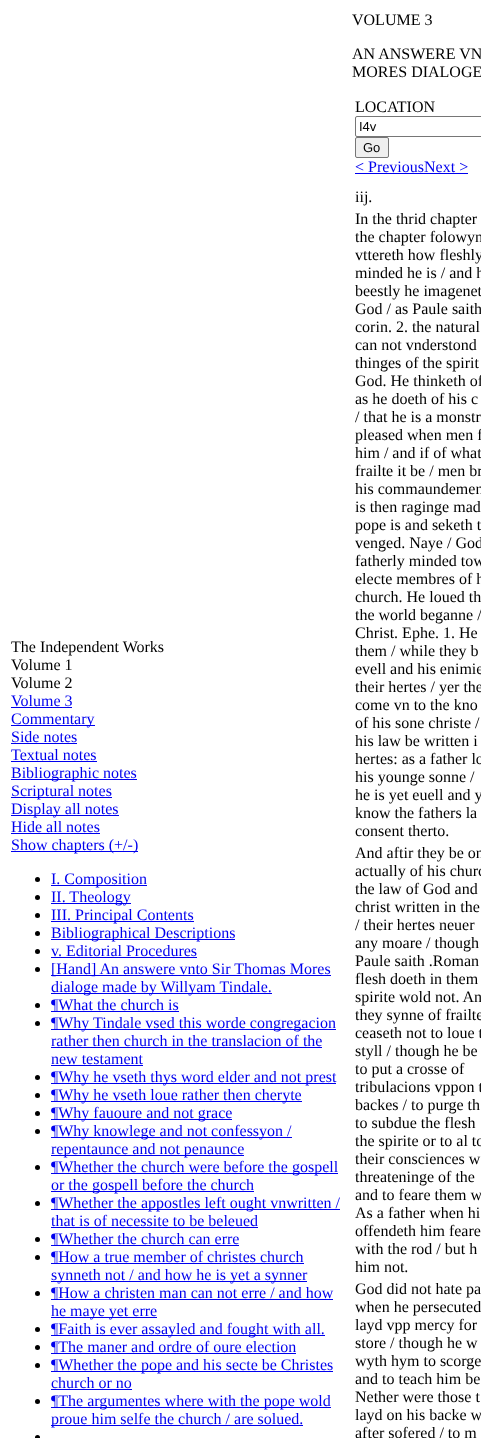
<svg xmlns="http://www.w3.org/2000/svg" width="481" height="1438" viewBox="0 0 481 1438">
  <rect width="100%" height="100%" fill="#fff"/>
  <path d="M11 707h61v1H11z" fill="#00e"/>
  <path d="M11 725h84v1H11z" fill="#00e"/>
  <path d="M11 743h66v1H11z" fill="#00e"/>
  <path d="M11 761h86v1H11z" fill="#00e"/>
  <path d="M11 779h126v1H11z" fill="#00e"/>
  <path d="M11 797h101v1H11z" fill="#00e"/>
  <path d="M11 815h108v1H11z" fill="#00e"/>
  <path d="M11 833h89v1H11z" fill="#00e"/>
  <path d="M11 851h127v1H11z" fill="#00e"/>
  <circle cx="37.5" cy="879.5" r="2.5" fill="#000"/>
  <path d="M51 885h96v1H51z" fill="#00e"/>
  <circle cx="37.5" cy="897.5" r="2.5" fill="#000"/>
  <path d="M51 903h80v1H51z" fill="#00e"/>
  <circle cx="37.5" cy="915.5" r="2.5" fill="#000"/>
  <path d="M51 921h143v1H51z" fill="#00e"/>
  <circle cx="37.5" cy="933.5" r="2.5" fill="#000"/>
  <path d="M51 939h184v1H51z" fill="#00e"/>
  <circle cx="37.5" cy="951.5" r="2.5" fill="#000"/>
  <path d="M51 957h146v1H51z" fill="#00e"/>
  <circle cx="37.5" cy="969.5" r="2.5" fill="#000"/>
  <path d="M51 975h280v1H51z" fill="#00e"/>
  <path d="M51 993h221v1H51z" fill="#00e"/>
  <circle cx="37.5" cy="1005.5" r="2.5" fill="#000"/>
  <path d="M51 1011h128v1H51z" fill="#00e"/>
  <circle cx="37.5" cy="1023.5" r="2.5" fill="#000"/>
  <path d="M51 1029h285v1H51z" fill="#00e"/>
  <path d="M51 1047h271v1H51z" fill="#00e"/>
  <path d="M51 1065h92v1H51z" fill="#00e"/>
  <circle cx="37.5" cy="1077.5" r="2.5" fill="#000"/>
  <path d="M51 1083h285v1H51z" fill="#00e"/>
  <circle cx="37.5" cy="1095.5" r="2.5" fill="#000"/>
  <path d="M51 1101h251v1H51z" fill="#00e"/>
  <circle cx="37.5" cy="1113.5" r="2.5" fill="#000"/>
  <path d="M51 1119h181v1H51z" fill="#00e"/>
  <circle cx="37.5" cy="1131.5" r="2.5" fill="#000"/>
  <path d="M51 1137h241v1H51z" fill="#00e"/>
  <path d="M51 1155h193v1H51z" fill="#00e"/>
  <circle cx="37.5" cy="1167.5" r="2.5" fill="#000"/>
  <path d="M51 1173h287v1H51z" fill="#00e"/>
  <path d="M51 1191h203v1H51z" fill="#00e"/>
  <circle cx="37.5" cy="1203.5" r="2.5" fill="#000"/>
  <path d="M51 1209h289v1H51z" fill="#00e"/>
  <path d="M51 1227h207v1H51z" fill="#00e"/>
  <circle cx="37.5" cy="1239.5" r="2.5" fill="#000"/>
  <path d="M51 1245h188v1H51z" fill="#00e"/>
  <circle cx="37.5" cy="1257.5" r="2.5" fill="#000"/>
  <path d="M51 1263h253v1H51z" fill="#00e"/>
  <path d="M51 1281h256v1H51z" fill="#00e"/>
  <circle cx="37.5" cy="1293.5" r="2.5" fill="#000"/>
  <path d="M51 1299h282v1H51z" fill="#00e"/>
  <path d="M51 1317h106v1H51z" fill="#00e"/>
  <circle cx="37.5" cy="1329.5" r="2.5" fill="#000"/>
  <path d="M51 1335h274v1H51z" fill="#00e"/>
  <circle cx="37.5" cy="1347.5" r="2.5" fill="#000"/>
  <path d="M51 1353h245v1H51z" fill="#00e"/>
  <circle cx="37.5" cy="1365.5" r="2.5" fill="#000"/>
  <path d="M51 1371h282v1H51z" fill="#00e"/>
  <path d="M51 1389h81v1H51z" fill="#00e"/>
  <circle cx="37.5" cy="1401.5" r="2.5" fill="#000"/>
  <path d="M51 1407h280v1H51z" fill="#00e"/>
  <path d="M51 1425h252v1H51z" fill="#00e"/>
  <circle cx="37.5" cy="1437.5" r="2.5" fill="#000"/>
  <rect x="355.5" y="116.5" width="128" height="20" rx="1.5" fill="none" stroke="#767676"/>
  <rect x="355.5" y="137.5" width="33" height="20" rx="1.5" fill="#efefef" stroke="#767676"/>
  <path d="M355 173h113v1H355z" fill="#00e"/>
  <g font-family="Liberation Serif" font-size="16" fill="#000">
    <text x="352" y="25">VOLUME 3</text>
    <text x="352" y="59">AN ANSWERE VN</text>
    <text x="352" y="77">MORES DIALOGE</text>
    <text x="11" y="652">The Independent Works</text>
    <text x="11" y="670">Volume 1</text>
    <text x="11" y="688">Volume 2</text>
  </g>
  <g font-family="Liberation Serif" font-size="16" fill="#00e">
    <text x="11" y="706">Volume 3</text>
    <text x="11" y="724">Commentary</text>
    <text x="11" y="742">Side notes</text>
    <text x="11" y="760">Textual notes</text>
    <text x="11" y="778">Bibliographic notes</text>
    <text x="11" y="796">Scriptural notes</text>
    <text x="11" y="814">Display all notes</text>
    <text x="11" y="832">Hide all notes</text>
    <text x="11" y="850">Show chapters (+/-)</text>
    <text x="51" y="884">I. Composition</text>
    <text x="51" y="902">II. Theology</text>
    <text x="51" y="920">III. Principal Contents</text>
    <text x="51" y="938">Bibliographical Descriptions</text>
    <text x="51" y="956">v. Editorial Procedures</text>
    <text x="51" y="974">[Hand] An answere vnto Sir Thomas Mores</text>
    <text x="51" y="992">dialoge made by Willyam Tindale.</text>
    <text x="51" y="1010">¶What the church is</text>
    <text x="51" y="1028">¶Why Tindale vsed this worde congregacion</text>
    <text x="51" y="1046">rather then church in the translacion of the</text>
    <text x="51" y="1064">new testament</text>
    <text x="51" y="1082">¶Why he vseth thys word elder and not prest</text>
    <text x="51" y="1100">¶Why he vseth loue rather then cheryte</text>
    <text x="51" y="1118">¶Why fauoure and not grace</text>
    <text x="51" y="1136">¶Why knowlege and not confessyon /</text>
    <text x="51" y="1154">repentaunce and not penaunce</text>
    <text x="51" y="1172">¶Whether the church were before the gospell</text>
    <text x="51" y="1190">or the gospell before the church</text>
    <text x="51" y="1208">¶Whether the appostles left ought vnwritten /</text>
    <text x="51" y="1226">that is of necessite to be beleued</text>
    <text x="51" y="1244">¶Whether the church can erre</text>
    <text x="51" y="1262">¶How a true member of christes church</text>
    <text x="51" y="1280">synneth not / and how he is yet a synner</text>
    <text x="51" y="1298">¶How a christen man can not erre / and how</text>
    <text x="51" y="1316">he maye yet erre</text>
    <text x="51" y="1334">¶Faith is ever assayled and fought with all.</text>
    <text x="51" y="1352">¶The maner and ordre of oure election</text>
    <text x="51" y="1370">¶Whether the pope and his secte be Christes</text>
    <text x="51" y="1388">church or no</text>
    <text x="51" y="1406">¶The argumentes where with the pope wold</text>
    <text x="51" y="1424">proue him selfe the church / are solued.</text>
  </g>
  <text x="355" y="112" font-family="Liberation Serif" font-size="16" fill="#000">LOCATION</text>
  <g font-family="Liberation Sans" font-size="13" fill="#000">
    <text x="359" y="131">I4v</text>
    <text x="363" y="152">Go</text>
  </g>
  <text x="355" y="172" font-family="Liberation Serif" font-size="16" fill="#00e">&lt; PreviousNext &gt;</text>
  <g font-family="Liberation Serif" font-size="16" fill="#000">
    <text x="355" y="202">iij.</text>
    <text x="355" y="224">In the thrid chapter</text>
    <text x="355" y="242">the chapter folowyn</text>
    <text x="355" y="260">vttereth how fleshly</text>
    <text x="355" y="278">minded he is / and h</text>
    <text x="355" y="296">beestly he imagenet</text>
    <text x="355" y="314">God / as Paule saith</text>
    <text x="355" y="332">corin. 2. the natural</text>
    <text x="355" y="350">can not vnderstond</text>
    <text x="355" y="368">thinges of the spirit</text>
    <text x="355" y="386">God. He thinketh of</text>
    <text x="355" y="404">as he doeth of his c</text>
    <text x="355" y="422">/ that he is a monstr</text>
    <text x="355" y="440">pleased when men f</text>
    <text x="355" y="458">him / and if of what</text>
    <text x="355" y="476">frailte it be / men br</text>
    <text x="355" y="494">his commaundemen</text>
    <text x="355" y="512">is then raginge mad</text>
    <text x="355" y="530">pope is and seketh t</text>
    <text x="355" y="548">venged. Naye / God</text>
    <text x="355" y="566">fatherly minded tow</text>
    <text x="355" y="584">electe membres of h</text>
    <text x="355" y="602">church. He loued th</text>
    <text x="355" y="620">the world beganne /</text>
    <text x="355" y="638">Christ. Ephe. 1. He</text>
    <text x="355" y="656">them / while they b</text>
    <text x="355" y="674">evell and his enimie</text>
    <text x="355" y="692">their hertes / yer the</text>
    <text x="355" y="710">come vn to the kno</text>
    <text x="355" y="728">of his sone christe /</text>
    <text x="355" y="746">his law be written i</text>
    <text x="355" y="764">hertes: as a father lo</text>
    <text x="355" y="782">his younge sonne /</text>
    <text x="355" y="800">he is yet euell and y</text>
    <text x="355" y="818">know the fathers la</text>
    <text x="355" y="836">consent therto.</text>
    <text x="355" y="858">And aftir they be on</text>
    <text x="355" y="876">actually of his churc</text>
    <text x="355" y="894">the law of God and</text>
    <text x="355" y="912">christ written in the</text>
    <text x="355" y="930">/ their hertes neuer</text>
    <text x="355" y="948">any moare / though</text>
    <text x="355" y="966">Paule saith .Roman</text>
    <text x="355" y="984">flesh doeth in them</text>
    <text x="355" y="1002">spirite wold not. An</text>
    <text x="355" y="1020">they synne of frailte</text>
    <text x="355" y="1038">ceaseth not to loue t</text>
    <text x="355" y="1056">styll / though he be</text>
    <text x="355" y="1074">to put a crosse of</text>
    <text x="355" y="1092">tribulacions vppon t</text>
    <text x="355" y="1110">backes / to purge th</text>
    <text x="355" y="1128">to subdue the flesh</text>
    <text x="355" y="1146">the spirite or to al to</text>
    <text x="355" y="1164">their consciences w</text>
    <text x="355" y="1182">threateninge of the</text>
    <text x="355" y="1200">and to feare them w</text>
    <text x="355" y="1218">As a father when hi</text>
    <text x="355" y="1236">offendeth him feare</text>
    <text x="355" y="1254">with the rod / but h</text>
    <text x="355" y="1272">him not.</text>
    <text x="355" y="1294">God did not hate pa</text>
    <text x="355" y="1312">when he persecuted</text>
    <text x="355" y="1330">layd vpp mercy for</text>
    <text x="355" y="1348">store / though he w</text>
    <text x="355" y="1366">wyth hym to scorge</text>
    <text x="355" y="1384">and to teach him be</text>
    <text x="355" y="1402">Nether were those t</text>
    <text x="355" y="1420">layd on his backe w</text>
    <text x="355" y="1438">after sofered / to m</text>
  </g>
</svg>
